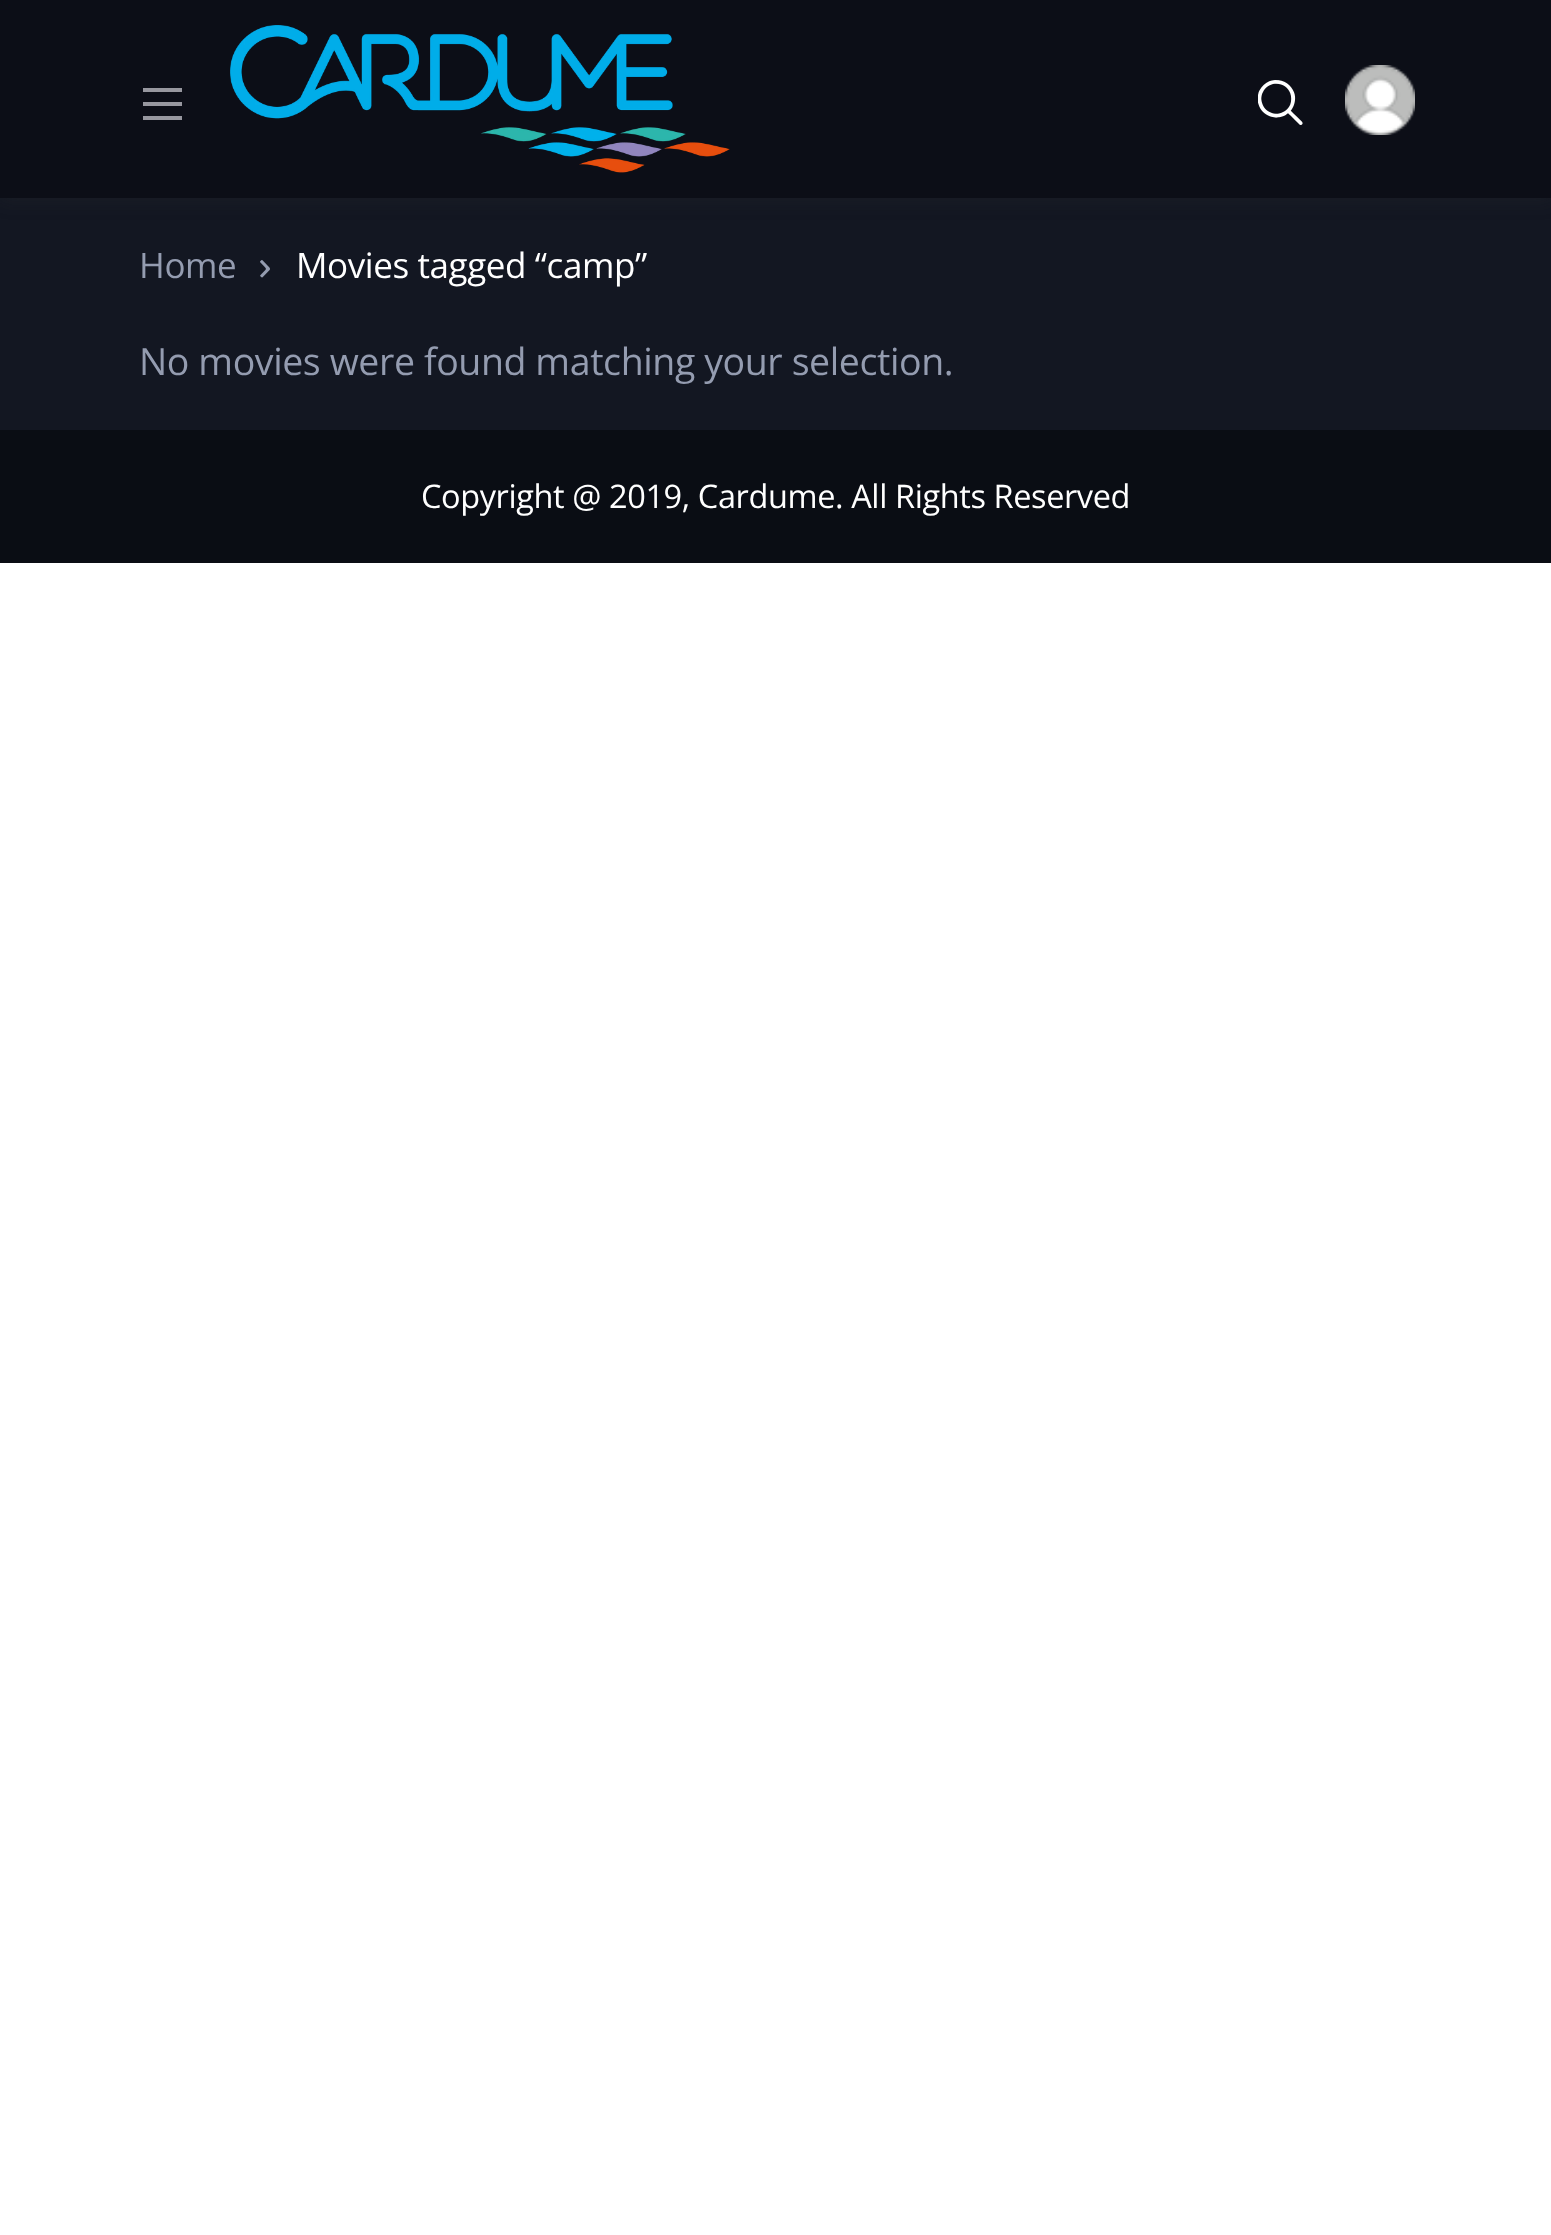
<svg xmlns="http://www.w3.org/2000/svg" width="1551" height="2235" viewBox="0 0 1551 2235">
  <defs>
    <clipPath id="clip1"><path d="M143 88h40v32H143z"/></clipPath>
  </defs>
  <rect width="100%" height="100%" fill="#fff"/>
  <path d="M0 198h1551v232H0z" fill="#131722"/>
  <path d="M0 0h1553v198H0z" fill="#3333334d" filter="blur(10px)"/>
  <path d="M0 0h1551v198H0z" fill="#0c0e17"/>
  <g clip-path="url(#clip1)">
    <path d="M142 120V116H182V120ZM142 102H182V106H142ZM142 88H182V92H142Z" fill="#97979f"/>
  </g>
  <image x="230" y="25" width="500" height="148" href="img/1.png"/>
  <image x="1258" y="80" width="45" height="45" href="img/2.png"/>
  <image x="1345" y="65" width="70" height="70" href="img/3.png"/>
  <image x="260" y="260" width="10" height="18" href="img/4.png"/>
  <path d="M0 430h1551v133H0z" fill="#0a0d14"/>
  <text x="139" y="278" font-family="Open Sans" font-size="35" letter-spacing="-0.4" fill="#949cb0">Home</text>
  <text x="296" y="278" font-family="Open Sans" font-size="35" letter-spacing="-0.4" fill="#fff">Movies tagged “camp”</text>
  <text x="139" y="375" font-family="Open Sans" font-size="37.5" letter-spacing="-0.4" fill="#949cb0">No movies were found matching your selection.</text>
  <text x="421" y="508" font-family="Open Sans" font-size="32.5" letter-spacing="-0.4" fill="#fff">Copyright @ 2019, Cardume. All Rights Reserved</text>
</svg>
